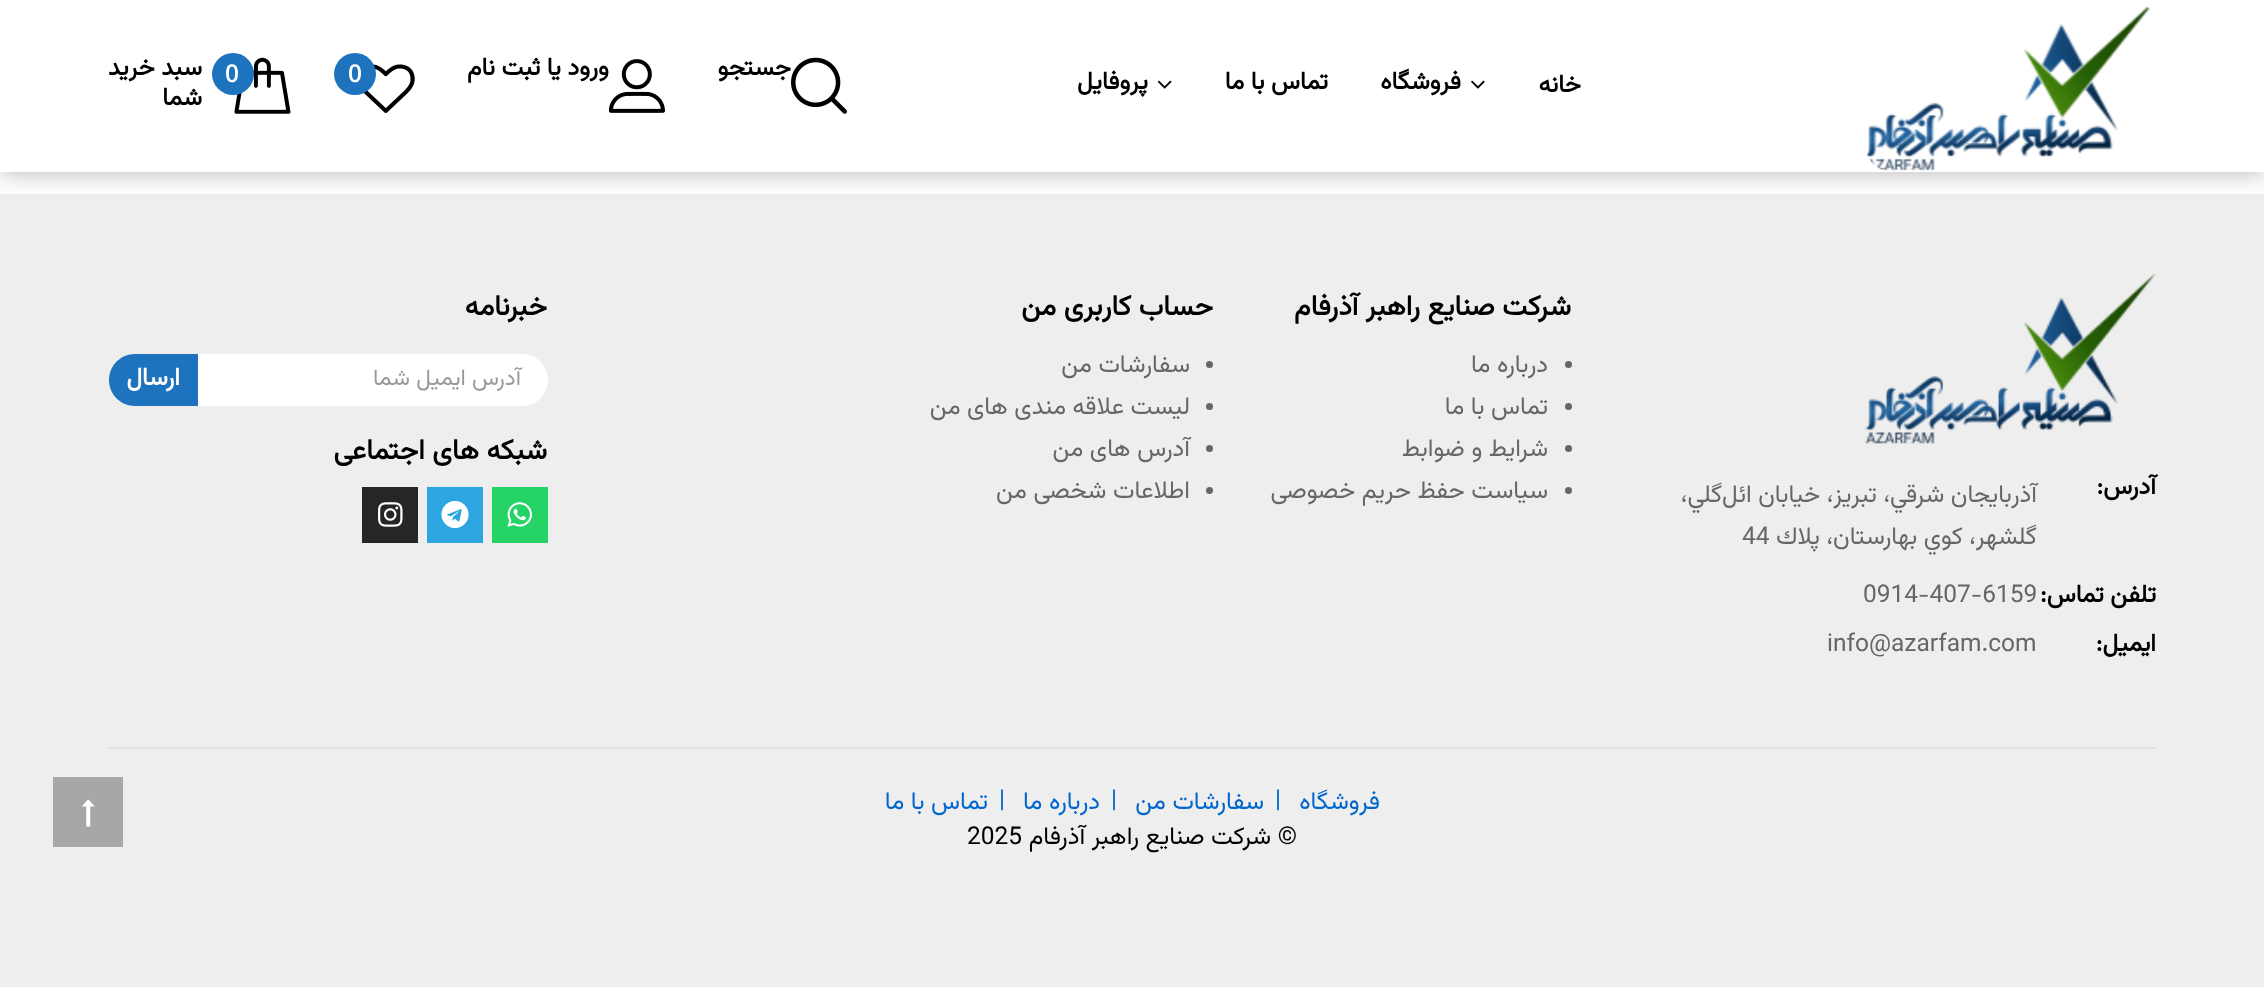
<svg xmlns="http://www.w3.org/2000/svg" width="2264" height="987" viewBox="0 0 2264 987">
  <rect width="100%" height="100%" fill="#fff"/>
  <path d="M0 194h2264v793H0z" fill="#eee"/>
  <path d="M0 0h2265v172H0z" fill="#0000004d" filter="blur(13px)"/>
  <path d="M0 0h2264v172H0z" fill="#fff"/>
  <image x="1866" y="6" width="284" height="165" href="img/1.png"/>
  <image x="1471" y="80" width="14" height="9" href="img/2.png"/>
  <image x="1157" y="80" width="15" height="9" href="img/3.png"/>
  <image x="791" y="57" width="56" height="57" href="img/4.png"/>
  <image x="609" y="59" width="56" height="54" href="img/5.png"/>
  <image x="364" y="64" width="51" height="49" href="img/6.png"/>
  <circle cx="355" cy="74" r="21" fill="#1e73be"/>
  <image x="234" y="57" width="57" height="57" href="img/7.png"/>
  <circle cx="233" cy="74" r="21" fill="#1e73be"/>
  <circle cx="1568.5" cy="364.5" r="3.5" fill="#666"/>
  <circle cx="1568.5" cy="406.5" r="3.5" fill="#666"/>
  <circle cx="1568.5" cy="448.5" r="3.5" fill="#666"/>
  <circle cx="1568.5" cy="490.5" r="3.5" fill="#666"/>
  <circle cx="1209.5" cy="364.5" r="3.5" fill="#666"/>
  <circle cx="1209.5" cy="406.5" r="3.5" fill="#666"/>
  <circle cx="1209.5" cy="448.5" r="3.5" fill="#666"/>
  <circle cx="1209.5" cy="490.5" r="3.5" fill="#666"/>
  <path d="M198 354H522C536.5 354 548 365.5 548 380C548 394.5 536.5 406 522 406H198Z" fill="#fff"/>
  <path d="M135 354H198V406H135C120.5 406 109 394.5 109 380C109 365.5 120.5 354 135 354Z" fill="#1e73be"/>
  <path d="M492 487h56v56H492z" fill="#25d366"/>
  <image x="507" y="502" width="25" height="25" href="img/8.png"/>
  <path d="M427 487h56v56H427z" fill="#2ca5e0"/>
  <image x="441" y="500" width="28" height="29" href="img/9.png"/>
  <path d="M362 487h56v56H362z" fill="#262626"/>
  <image x="378" y="502" width="25" height="25" href="img/10.png"/>
  <image x="1865" y="273" width="291" height="171" href="img/11.png"/>
  <path d="M109 747h2047v2H109z" fill="#e1e1e1"/>
  <path d="M53 777h70v70H53z" fill="#a7a7a7"/>
  <image x="82" y="799" width="13" height="28" href="img/12.png"/>
  <g font-family="Vazirmatn" font-size="24.5" font-weight="bold" direction="rtl" fill="#000">
    <text x="1581" y="92">خانه</text>
    <text x="1461" y="89">فروشگاه</text>
    <text x="1328" y="89">تماس با ما</text>
    <text x="1148" y="89">پروفایل</text>
    <text x="791" y="75">جستجو</text>
    <text x="609" y="75">ورود یا ثبت نام</text>
  </g>
  <g font-family="Open Sans" font-size="24.5" font-weight="600" fill="#fff">
    <text x="348" y="82">0</text>
    <text x="225" y="82">0</text>
  </g>
  <g font-family="Vazirmatn" font-size="24.5" font-weight="bold" direction="rtl" fill="#000">
    <text x="202" y="75">سبد خرید</text>
    <text x="202" y="105">شما</text>
  </g>
  <text x="1571" y="315" font-family="Vazirmatn" font-size="28" font-weight="bold" direction="rtl" fill="#000">شرکت صنایع راهبر آذرفام</text>
  <g font-family="Vazirmatn" font-size="24.5" direction="rtl" fill="#666">
    <text x="1548" y="372">درباره ما</text>
    <text x="1548" y="414">تماس با ما</text>
    <text x="1548" y="456">شرایط و ضوابط</text>
    <text x="1548" y="498">سیاست حفظ حریم خصوصی</text>
  </g>
  <text x="1213" y="315" font-family="Vazirmatn" font-size="28" font-weight="bold" direction="rtl" fill="#000">حساب کاربری من</text>
  <g font-family="Vazirmatn" font-size="24.5" direction="rtl" fill="#666">
    <text x="1190" y="372">سفارشات من</text>
    <text x="1190" y="414">لیست علاقه مندی های من</text>
    <text x="1190" y="456">آدرس های من</text>
    <text x="1190" y="498">اطلاعات شخصی من</text>
  </g>
  <text x="547" y="315" font-family="Vazirmatn" font-size="28" font-weight="bold" direction="rtl" fill="#000">خبرنامه</text>
  <text x="521" y="385" font-family="Vazirmatn" font-size="22.75" direction="rtl" fill="#999">آدرس ایمیل شما</text>
  <text x="180" y="385" font-family="Vazirmatn" font-size="24.5" font-weight="bold" direction="rtl" fill="#fff">ارسال</text>
  <text x="547" y="459" font-family="Vazirmatn" font-size="28" font-weight="bold" direction="rtl" fill="#000">شبکه های اجتماعی</text>
  <text x="2156" y="494" font-family="Vazirmatn" font-size="24.5" font-weight="bold" direction="rtl" fill="#000">آدرس:</text>
  <g font-family="Vazirmatn" font-size="24.5" direction="rtl" fill="#666">
    <text x="2037" y="502">آذربايجان شرقي، تبريز، خيابان ائل‌گلي،</text>
    <text x="2037" y="544">گلشهر، كوي بهارستان، پلاك</text>
  </g>
  <text x="1742" y="544" font-family="Vazirmatn" font-size="24.5" fill="#666">44</text>
  <text x="2156" y="602" font-family="Vazirmatn" font-size="24.5" font-weight="bold" direction="rtl" fill="#000">تلفن تماس:</text>
  <text x="1863" y="602" font-family="Vazirmatn" font-size="24.5" fill="#666">0914-407-6159</text>
  <text x="2156" y="651" font-family="Vazirmatn" font-size="24.5" font-weight="bold" direction="rtl" fill="#000">ایمیل:</text>
  <text x="1827" y="651" font-family="Vazirmatn" font-size="24.5" fill="#666">info@azarfam.com</text>
  <text x="1380" y="809" font-family="Vazirmatn" font-size="24.5" direction="rtl" fill="#06c">فروشگاه</text>
  <text x="1275" y="807" font-family="Vazirmatn" font-size="24.5" fill="#06c">|</text>
  <text x="1264" y="809" font-family="Vazirmatn" font-size="24.5" direction="rtl" fill="#06c">سفارشات من</text>
  <text x="1111" y="807" font-family="Vazirmatn" font-size="24.5" fill="#06c">|</text>
  <text x="1100" y="809" font-family="Vazirmatn" font-size="24.5" direction="rtl" fill="#06c">درباره ما</text>
  <text x="999" y="807" font-family="Vazirmatn" font-size="24.5" fill="#06c">|</text>
  <text x="988" y="809" font-family="Vazirmatn" font-size="24.5" direction="rtl" fill="#06c">تماس با ما</text>
  <text x="1297" y="844" font-family="Vazirmatn" font-size="24.5" direction="rtl" fill="#000">© شرکت صنایع راهبر آذرفام</text>
  <text x="967" y="844" font-family="Vazirmatn" font-size="24.5" fill="#000">2025</text>
</svg>
